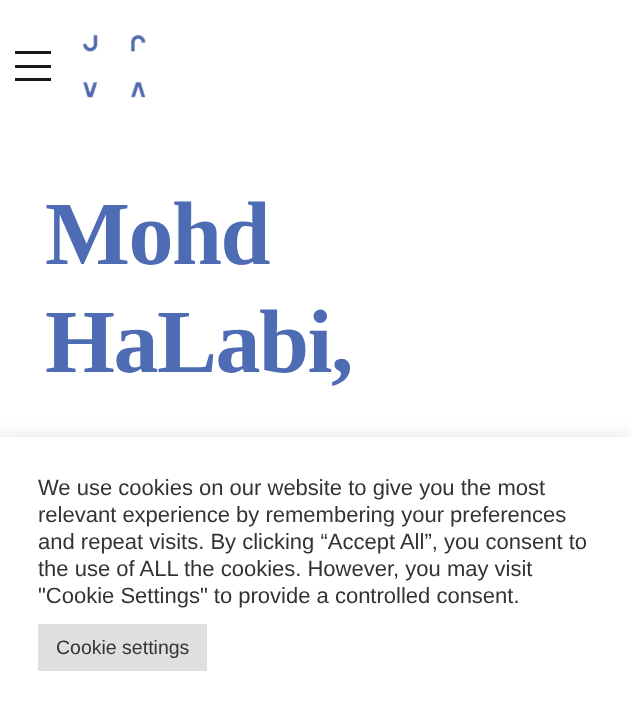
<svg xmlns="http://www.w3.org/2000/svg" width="631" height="707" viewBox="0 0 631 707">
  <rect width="100%" height="100%" fill="#fff"/>
  <path d="M15 51h36v3H15z" fill="#181818"/>
  <path d="M15 65h36v3H15z" fill="#181818"/>
  <path d="M15 78h36v3H15z" fill="#181818"/>
  <image x="82" y="34" width="64" height="64" href="img/1.png"/>
  <path d="M0 435h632v272H0z" fill="#acabab4d" filter="blur(7.5px)"/>
  <path d="M0 437h631v270H0z" fill="#fff"/>
  <path d="M38 624h169v47H38z" fill="#dedfe0"/>
  <g font-family="Liberation Serif" font-size="90" font-weight="bold" letter-spacing="-1.5" fill="#4e6cb4">
    <text x="45" y="264">Mohd</text>
    <text x="45" y="372">HaLabi,</text>
  </g>
  <g font-family="Liberation Sans" font-size="22" fill="#333">
    <text x="38" y="495">We use cookies on our website to give you the most</text>
    <text x="38" y="522">relevant experience by remembering your preferences</text>
    <text x="38" y="549">and repeat visits. By clicking “Accept All”, you consent to</text>
    <text x="38" y="576">the use of ALL the cookies. However, you may visit</text>
    <text x="38" y="603">"Cookie Settings" to provide a controlled consent.</text>
  </g>
  <text x="56" y="654" font-family="Liberation Sans" font-size="19.5" fill="#333">Cookie settings</text>
</svg>
